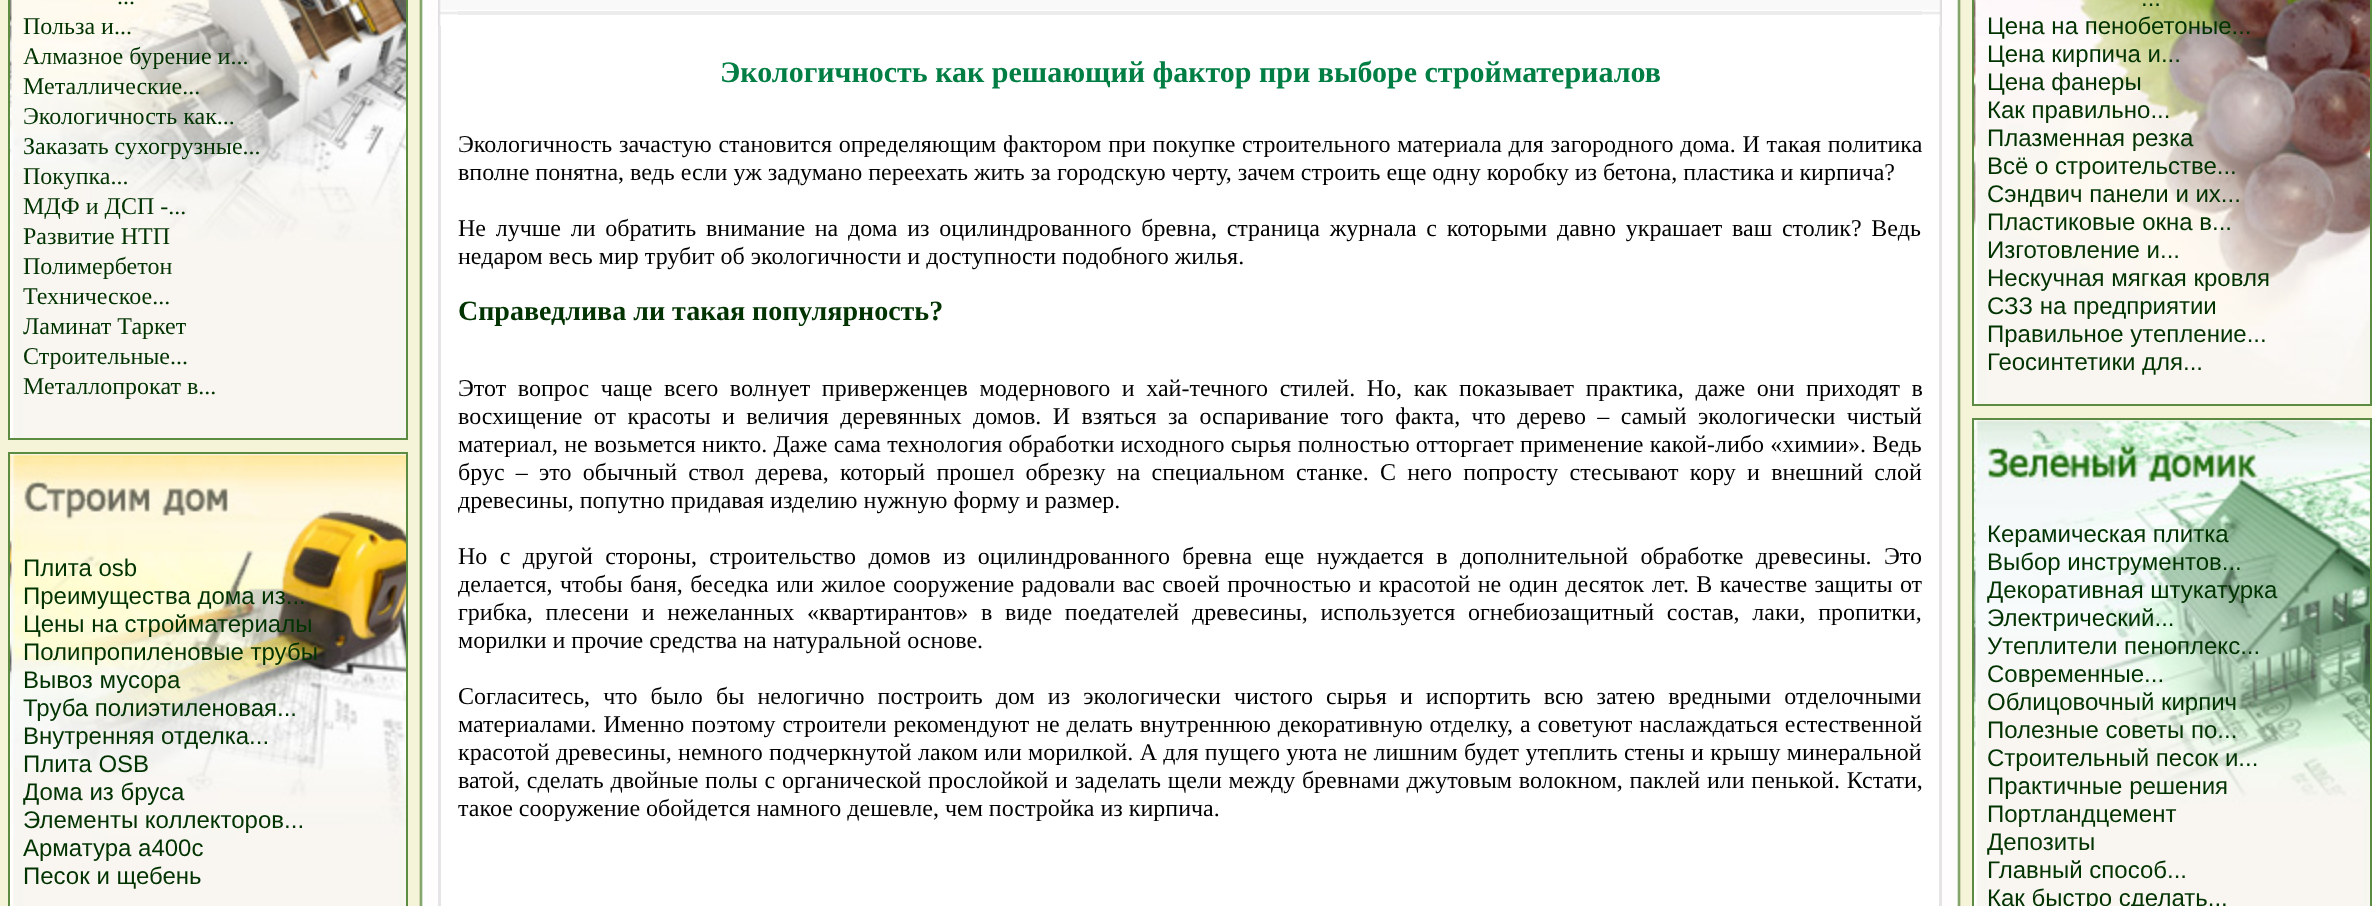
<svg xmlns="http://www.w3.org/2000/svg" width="2372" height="906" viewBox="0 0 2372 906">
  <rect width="100%" height="100%" fill="#f5f3d8"/>
  <path d="M406 0h2v440H406z" fill="#5c8c42"/>
  <path d="M8 438h400v2H8z" fill="#5c8c42"/>
  <path d="M8 0h2v440H8z" fill="#5c8c42"/>
  <image x="10" y="0" width="396" height="438" href="img/1.png"/>
  <path d="M8 452h400v2H8z" fill="#5c8c42"/>
  <path d="M406 452h2v454H406z" fill="#5c8c42"/>
  <path d="M8 452h2v454H8z" fill="#5c8c42"/>
  <image x="10" y="454" width="396" height="452" href="img/2.png"/>
  <path d="M2370 0h2v406H2370z" fill="#5c8c42"/>
  <path d="M1972 404h400v2H1972z" fill="#5c8c42"/>
  <path d="M1972 0h2v406H1972z" fill="#5c8c42"/>
  <image x="1974" y="0" width="396" height="404" href="img/3.png"/>
  <path d="M1972 418h400v2H1972z" fill="#5c8c42"/>
  <path d="M2370 418h2v488H2370z" fill="#5c8c42"/>
  <path d="M1972 418h2v488H1972z" fill="#5c8c42"/>
  <image x="1974" y="420" width="396" height="486" href="img/4.png"/>
  <image x="419" y="0" width="19" height="906" href="img/5.png"/>
  <path d="M441 10h1498v896H441z" fill="#fff"/>
  <image x="438" y="0" width="20" height="10" href="img/6.png"/>
  <path d="M458 0h1464v10H458z" fill="#f9f9f9"/>
  <image x="1922" y="0" width="20" height="10" href="img/7.png"/>
  <image x="438" y="10" width="20" height="16" href="img/8.png"/>
  <path d="M458 11h1464v4H458z" fill="#ececec"/>
  <image x="1922" y="10" width="20" height="16" href="img/9.png"/>
  <path d="M438 26h3v880H438z" fill="#e5e5e5"/>
  <path d="M1939 26h3v880H1939z" fill="#e5e5e5"/>
  <image x="1942" y="0" width="19" height="906" href="img/10.png"/>
  <g font-family="Liberation Serif" font-size="24" fill="#030">
    <text x="117" y="4">...</text>
    <text x="23" y="34">Польза и...</text>
    <text x="23" y="64">Алмазное бурение и...</text>
    <text x="23" y="94">Металлические...</text>
    <text x="23" y="124">Экологичность как...</text>
    <text x="23" y="154">Заказать сухогрузные...</text>
    <text x="23" y="184">Покупка...</text>
    <text x="23" y="214">МДФ и ДСП -...</text>
    <text x="23" y="244">Развитие НТП</text>
    <text x="23" y="274">Полимербетон</text>
    <text x="23" y="304">Техническое...</text>
    <text x="23" y="334">Ламинат Таркет</text>
    <text x="23" y="364">Строительные...</text>
    <text x="23" y="394">Металлопрокат в...</text>
  </g>
  <g font-family="Liberation Sans" font-size="24" fill="#030">
    <text x="23" y="576">Плита osb</text>
    <text x="23" y="604">Преимущества дома из...</text>
    <text x="23" y="632">Цены на стройматериалы</text>
    <text x="23" y="660">Полипропиленовые трубы</text>
    <text x="23" y="688">Вывоз мусора</text>
    <text x="23" y="716">Труба полиэтиленовая...</text>
    <text x="23" y="744">Внутренняя отделка...</text>
    <text x="23" y="772">Плита OSB</text>
    <text x="23" y="800">Дома из бруса</text>
    <text x="23" y="828">Элементы коллекторов...</text>
    <text x="23" y="856">Арматура а400с</text>
    <text x="23" y="884">Песок и щебень</text>
    <text x="2141" y="6">...</text>
    <text x="1987" y="34">Цена на пенобетоные...</text>
    <text x="1987" y="62">Цена кирпича и...</text>
    <text x="1987" y="90">Цена фанеры</text>
    <text x="1987" y="118">Как правильно...</text>
    <text x="1987" y="146">Плазменная резка</text>
    <text x="1987" y="174">Всё о строительстве...</text>
    <text x="1987" y="202">Сэндвич панели и их...</text>
    <text x="1987" y="230">Пластиковые окна в...</text>
    <text x="1987" y="258">Изготовление и...</text>
    <text x="1987" y="286">Нескучная мягкая кровля</text>
    <text x="1987" y="314">СЗЗ на предприятии</text>
    <text x="1987" y="342">Правильное утепление...</text>
    <text x="1987" y="370">Геосинтетики для...</text>
    <text x="1987" y="542">Керамическая плитка</text>
    <text x="1987" y="570">Выбор инструментов...</text>
    <text x="1987" y="598">Декоративная штукатурка</text>
    <text x="1987" y="626">Электрический...</text>
    <text x="1987" y="654">Утеплители пеноплекс...</text>
    <text x="1987" y="682">Современные...</text>
    <text x="1987" y="710">Облицовочный кирпич</text>
    <text x="1987" y="738">Полезные советы по...</text>
    <text x="1987" y="766">Строительный песок и...</text>
    <text x="1987" y="794">Практичные решения</text>
    <text x="1987" y="822">Портландцемент</text>
    <text x="1987" y="850">Депозиты</text>
    <text x="1987" y="878">Главный способ...</text>
    <text x="1987" y="906">Как быстро сделать...</text>
  </g>
  <text x="720" y="82" font-family="Liberation Serif" font-size="30" font-weight="bold" fill="#007e43">Экологичность как решающий фактор при выборе стройматериалов</text>
  <g font-family="Liberation Serif" font-size="24" fill="#000">
    <text x="458" y="152" word-spacing="0.75">Экологичность зачастую становится определяющим фактором при покупке строительного материала для загородного дома. И такая политика</text>
    <text x="458" y="180">вполне понятна, ведь если уж задумано переехать жить за городскую черту, зачем строить еще одну коробку из бетона, пластика и кирпича?</text>
    <text x="458" y="236" word-spacing="3.75">Не лучше ли обратить внимание на дома из оцилиндрованного бревна, страница журнала с которыми давно украшает ваш столик? Ведь</text>
    <text x="458" y="264">недаром весь мир трубит об экологичности и доступности подобного жилья.</text>
  </g>
  <text x="458" y="320" font-family="Liberation Serif" font-size="28" font-weight="bold" fill="#030">Справедлива ли такая популярность?</text>
  <g font-family="Liberation Serif" font-size="24" fill="#000">
    <text x="458" y="396" word-spacing="5.6">Этот вопрос чаще всего волнует приверженцев модернового и хай-течного стилей. Но, как показывает практика, даже они приходят в</text>
    <text x="458" y="424" word-spacing="5.4">восхищение от красоты и величия деревянных домов. И взяться за оспаривание того факта, что дерево – самый экологически чистый</text>
    <text x="458" y="452" word-spacing="0.25">материал, не возьмется никто. Даже сама технология обработки исходного сырья полностью отторгает применение какой-либо «химии». Ведь</text>
    <text x="458" y="480" word-spacing="5.25">брус – это обычный ствол дерева, который прошел обрезку на специальном станке. С него попросту стесывают кору и внешний слой</text>
    <text x="458" y="508">древесины, попутно придавая изделию нужную форму и размер.</text>
    <text x="458" y="564" word-spacing="6.4">Но с другой стороны, строительство домов из оцилиндрованного бревна еще нуждается в дополнительной обработке древесины. Это</text>
    <text x="458" y="592" word-spacing="1.4">делается, чтобы баня, беседка или жилое сооружение радовали вас своей прочностью и красотой не один десяток лет. В качестве защиты от</text>
    <text x="458" y="620" word-spacing="6.75">грибка, плесени и нежеланных «квартирантов» в виде поедателей древесины, используется огнебиозащитный состав, лаки, пропитки,</text>
    <text x="458" y="648">морилки и прочие средства на натуральной основе.</text>
    <text x="458" y="704" word-spacing="7.1">Согласитесь, что было бы нелогично построить дом из экологически чистого сырья и испортить всю затею вредными отделочными</text>
    <text x="458" y="732" word-spacing="0.9">материалами. Именно поэтому строители рекомендуют не делать внутреннюю декоративную отделку, а советуют наслаждаться естественной</text>
    <text x="458" y="760" word-spacing="0.3">красотой древесины, немного подчеркнутой лаком или морилкой. А для пущего уюта не лишним будет утеплить стены и крышу минеральной</text>
    <text x="458" y="788" word-spacing="0.75">ватой, сделать двойные полы с органической прослойкой и заделать щели между бревнами джутовым волокном, паклей или пенькой. Кстати,</text>
    <text x="458" y="816">такое сооружение обойдется намного дешевле, чем постройка из кирпича.</text>
  </g>
</svg>
